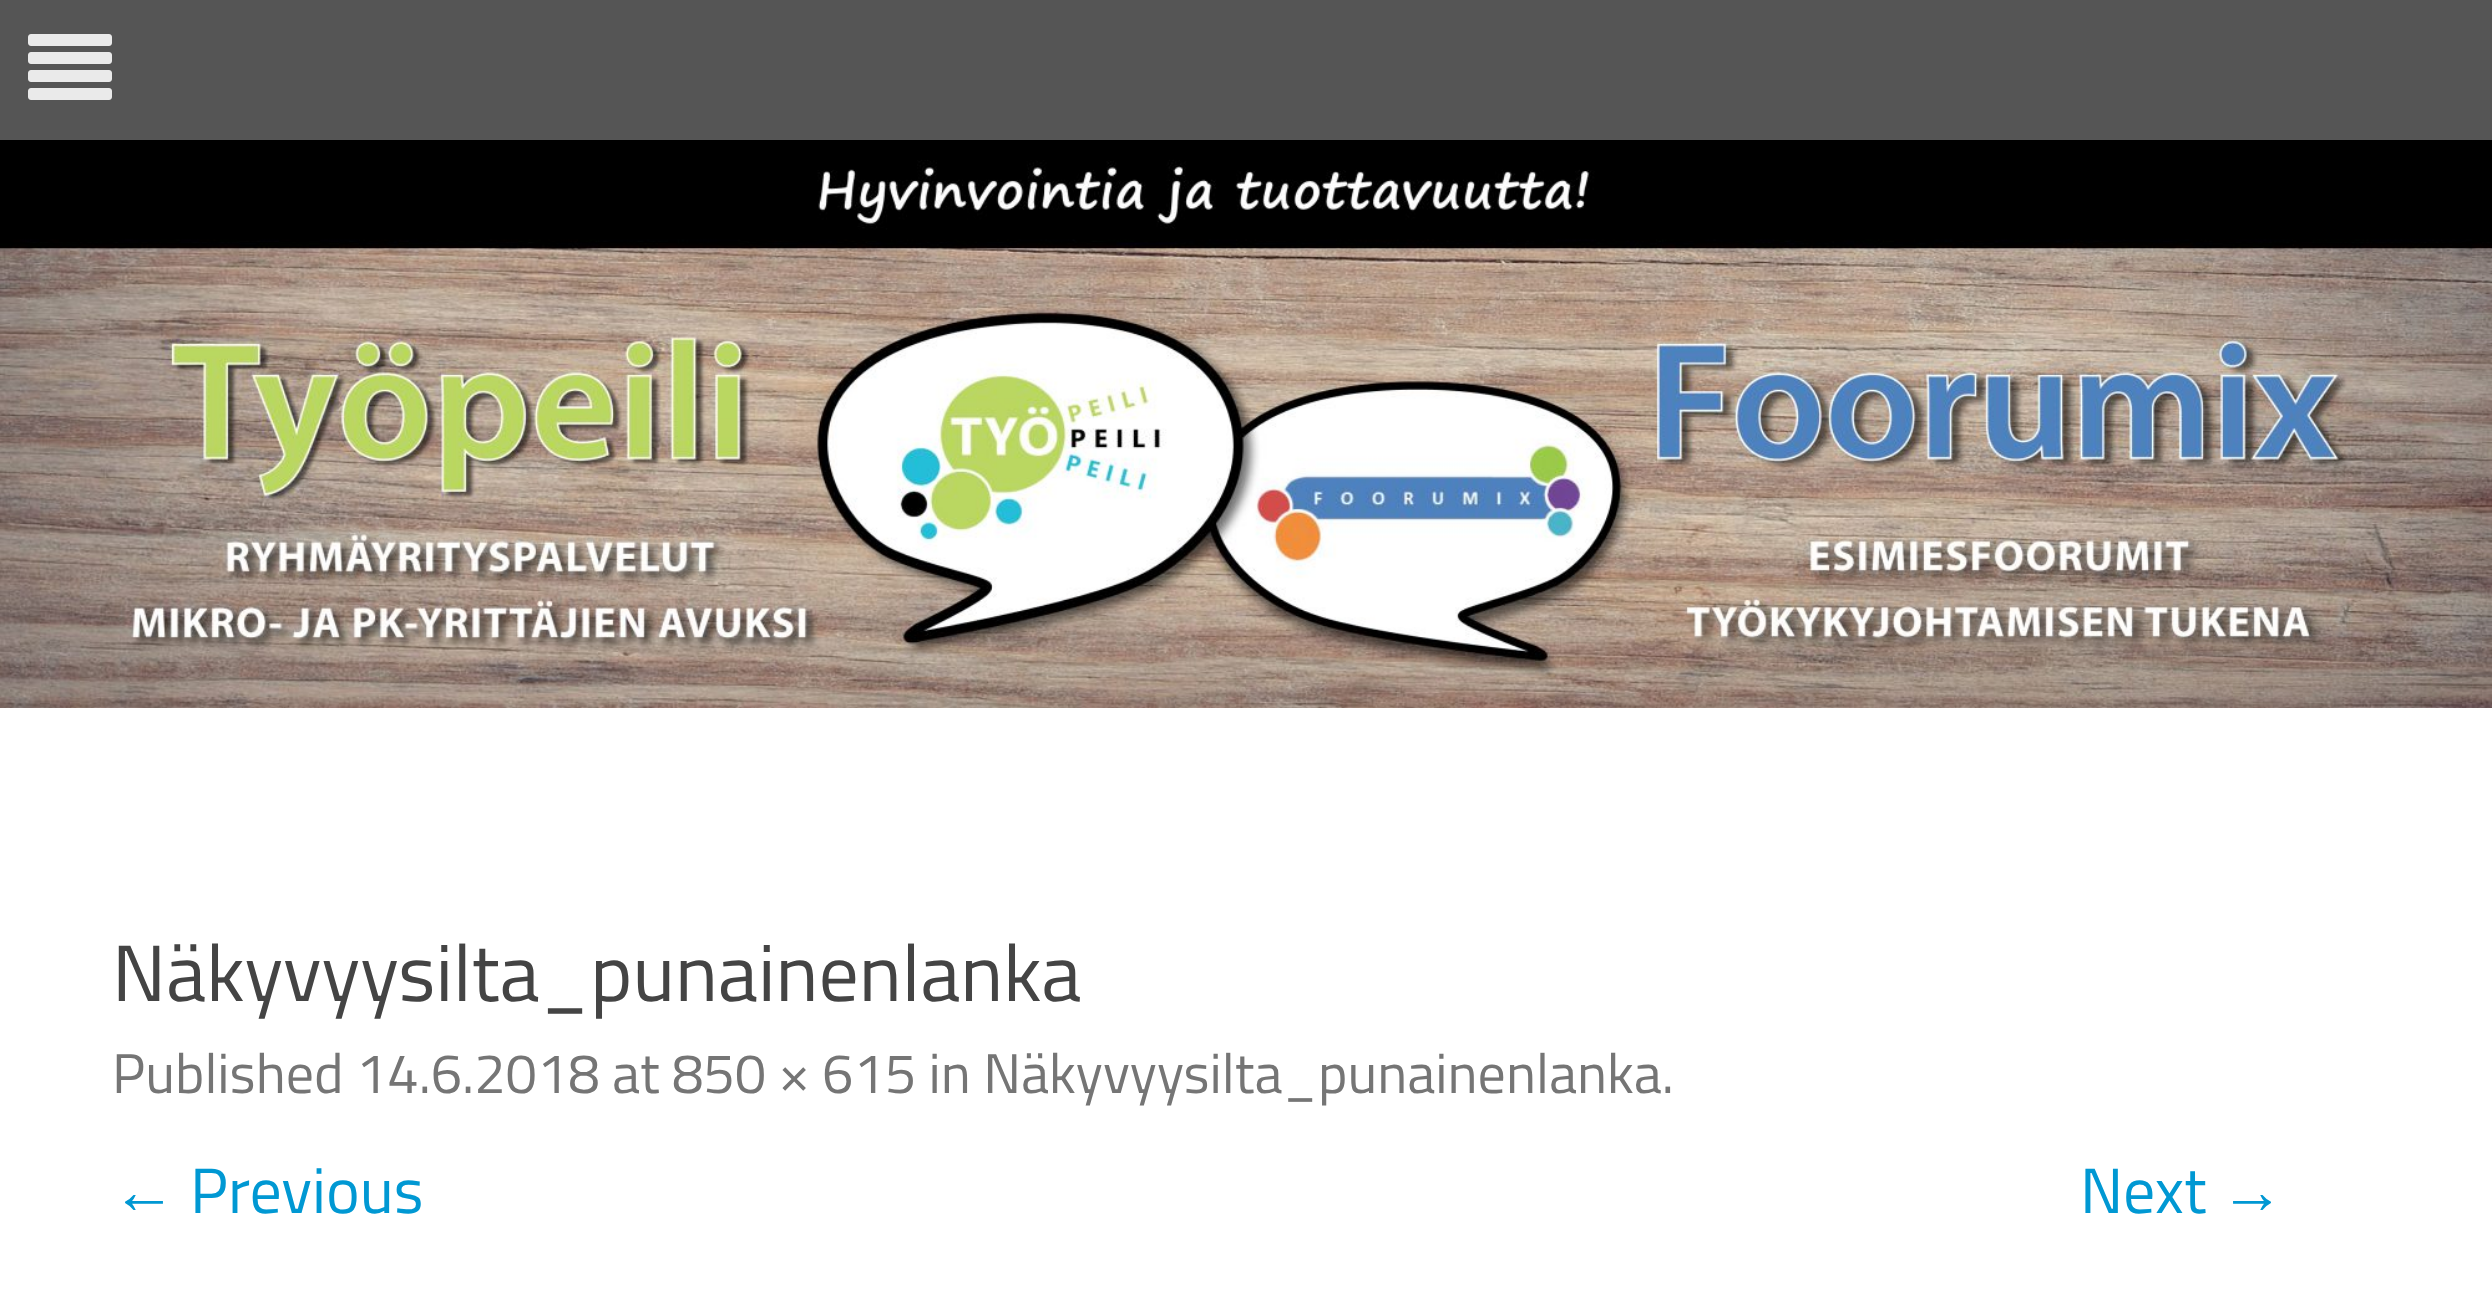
<svg xmlns="http://www.w3.org/2000/svg" width="2492" height="1298" viewBox="0 0 2492 1298">
  <rect width="100%" height="100%" fill="#fff"/>
  <path d="M0 0h2492v140H0z" fill="#555"/>
  <image x="28" y="34" width="84" height="66" href="img/1.png"/>
  <image x="0" y="140" width="2492" height="568" href="img/2.png"/>
  <text x="112" y="1001" font-family="Titillium Web" font-size="80" fill="#444">Näkyvyysilta_punainenlanka</text>
  <text x="112" y="1093" font-family="Titillium Web" font-size="56" fill="#757575">Published 14.6.2018 at 850 × 615 in Näkyvyysilta_punainenlanka.</text>
  <text x="112" y="1213" font-family="Liberation Sans" font-size="64" fill="#0098d3">←</text>
  <g font-family="Titillium Web" font-size="64" fill="#0098d3">
    <text x="190" y="1213">Previous</text>
    <text x="2080" y="1213">Next</text>
  </g>
  <text x="2220" y="1213" font-family="Liberation Sans" font-size="64" fill="#0098d3">→</text>
</svg>
